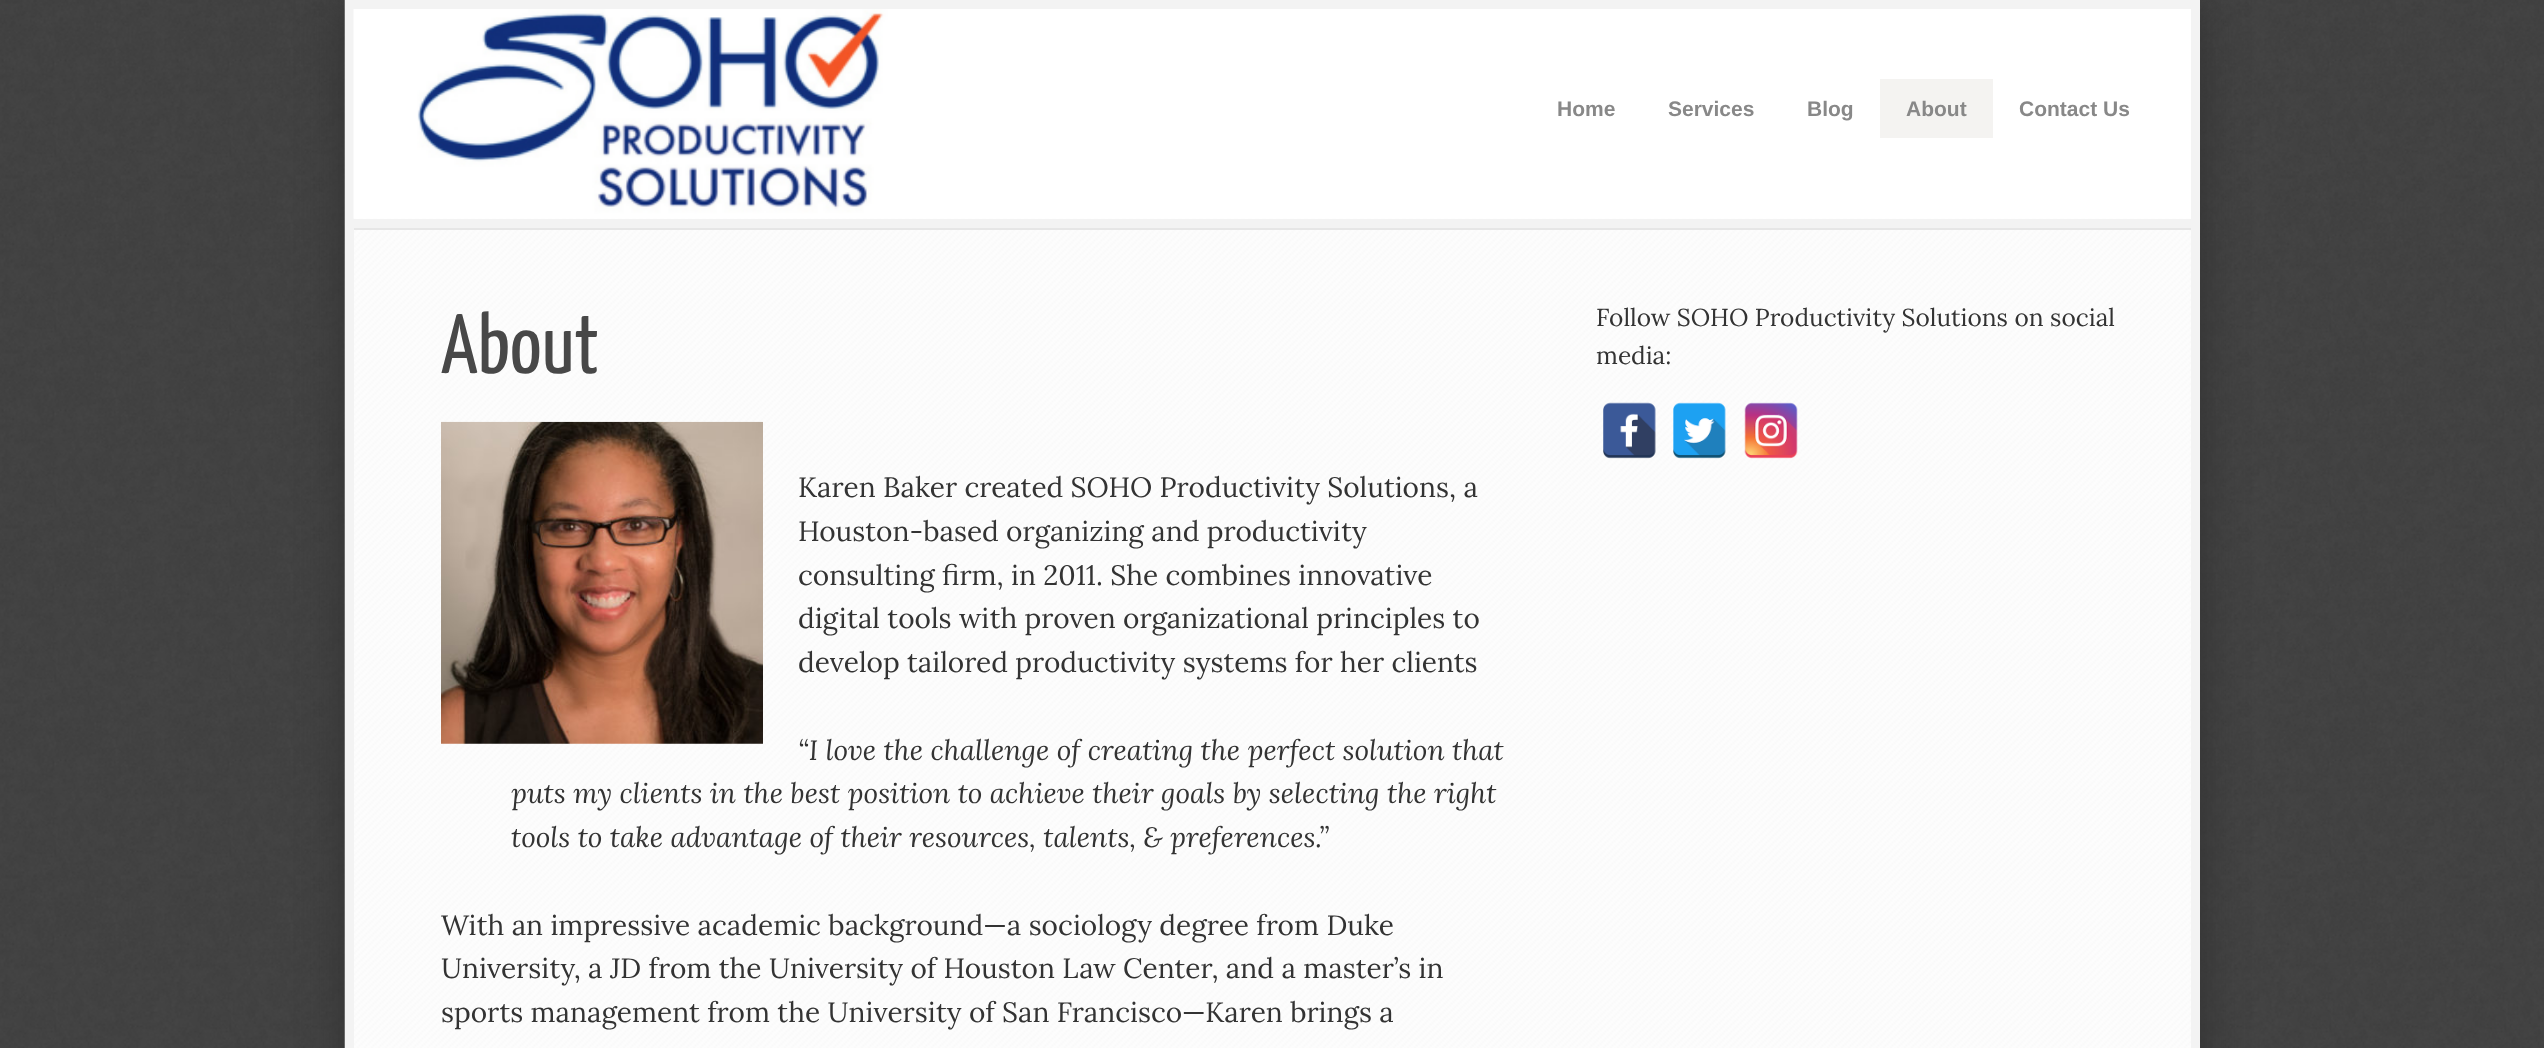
<svg xmlns="http://www.w3.org/2000/svg" width="2544" height="1048" viewBox="0 0 2544 1048">
  <rect width="100%" height="100%" fill="#fff"/>
  <image x="0" y="0" width="2544" height="1048" href="img/1.png"/>
  <path d="M345 0h1855v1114H345z" fill="#303030" filter="blur(22px)"/>
  <image x="344" y="0" width="1847" height="1048" href="img/2.png"/>
  <path d="M2191 0h9v1048H2191z" fill="#f3f3f3"/>
  <path d="M345 0h9v1048H345z" fill="#f3f3f3"/>
  <image x="353" y="9" width="1838" height="210" href="img/3.png"/>
  <path d="M354 0h1837v9H354z" fill="#f3f3f3"/>
  <path d="M354 228h1837v2H354z" fill="#e6e6e6"/>
  <path d="M354 219h1837v9H354z" fill="#f3f3f3"/>
  <path d="M1880 79h113v59H1880z" fill="#f4f3f1"/>
  <image x="441" y="421" width="322" height="323" href="img/4.png"/>
  <image x="1603" y="402" width="53" height="57" href="img/5.png"/>
  <image x="1673" y="402" width="53" height="57" href="img/6.png"/>
  <image x="1744" y="402" width="54" height="57" href="img/7.png"/>
  <g font-family="Liberation Sans" font-size="21" font-weight="bold" fill="#888">
    <text x="1557" y="116">Home</text>
    <text x="1668" y="116">Services</text>
    <text x="1807" y="116">Blog</text>
    <text x="1906" y="116">About</text>
    <text x="2019" y="116">Contact Us</text>
  </g>
  <text x="441" y="373" font-family="Yanone Kaffeesatz" font-size="84" fill="#484848">About</text>
  <g font-family="Lora" font-size="28" fill="#333">
    <text x="798" y="497">Karen Baker created SOHO Productivity Solutions, a</text>
    <text x="798" y="541">Houston-based organizing and productivity</text>
    <text x="798" y="585">consulting firm, in 2011. She combines innovative</text>
    <text x="798" y="628">digital tools with proven organizational principles to</text>
    <text x="798" y="672">develop tailored productivity systems for her clients</text>
  </g>
  <g font-family="Lora" font-size="28" font-style="italic" fill="#333">
    <text x="798" y="760">“I love the challenge of creating the perfect solution that</text>
    <text x="511" y="803">puts my clients in the best position to achieve their goals by selecting the right</text>
    <text x="511" y="847">tools to take advantage of their resources, talents, &amp; preferences.”</text>
  </g>
  <g font-family="Lora" font-size="28" fill="#333">
    <text x="441" y="935">With an impressive academic background—a sociology degree from Duke</text>
    <text x="441" y="978">University, a JD from the University of Houston Law Center, and a master’s in</text>
    <text x="441" y="1022">sports management from the University of San Francisco—Karen brings a</text>
  </g>
  <g font-family="Lora" font-size="24.5" fill="#333">
    <text x="1596" y="326">Follow SOHO Productivity Solutions on social</text>
    <text x="1596" y="364">media:</text>
  </g>
</svg>
